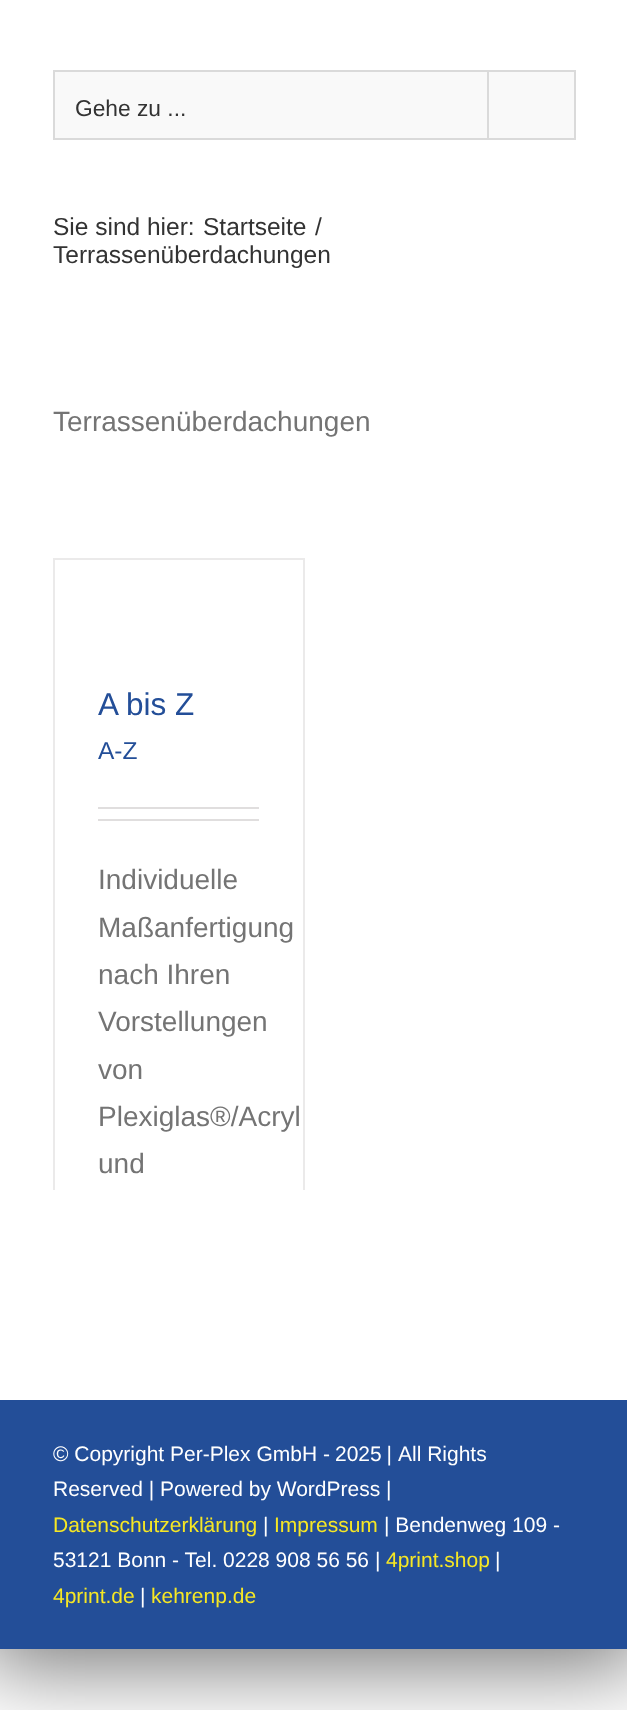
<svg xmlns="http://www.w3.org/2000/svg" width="627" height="1710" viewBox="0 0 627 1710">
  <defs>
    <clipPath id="clip1"><path d="M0 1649h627v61H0z"/></clipPath>
  </defs>
  <rect width="100%" height="100%" fill="#fff"/>
  <g clip-path="url(#clip1)">
    <path d="M-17 -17h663v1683H-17z" fill="#0000008c" filter="blur(44px)"/>
  </g>
  <path d="M54 71h521v68H54z" fill="#f9f9f9" stroke="#dadada" stroke-width="2"/>
  <path d="M487 72h2v66H487z" fill="#dadada"/>
  <path d="M53 558h252v2H53z" fill="#ebeaea"/>
  <path d="M303 558h2v632H303z" fill="#ebeaea"/>
  <path d="M53 558h2v632H53z" fill="#ebeaea"/>
  <path d="M98 807h161v2H98z" fill="#e0dede"/>
  <path d="M98 819h161v2H98z" fill="#e0dede"/>
  <path d="M0 1400h627v249H0z" fill="#234e98"/>
  <text x="75" y="116" font-family="Liberation Sans" font-size="22.75" fill="#333">Gehe zu ...</text>
  <g font-family="Liberation Sans" font-size="24.5" fill="#333">
    <text x="53" y="235">Sie sind hier:</text>
    <text x="203" y="235">Startseite</text>
    <text x="315" y="235">/</text>
    <text x="53" y="263">Terrassenüberdachungen</text>
  </g>
  <text x="53" y="431" font-family="Liberation Sans" font-size="28" fill="#747474">Terrassenüberdachungen</text>
  <text x="98" y="715" font-family="Liberation Sans" font-size="31.5" fill="#234e98">A bis Z</text>
  <text x="98" y="759" font-family="Liberation Sans" font-size="24.5" fill="#234e98">A-Z</text>
  <g font-family="Liberation Sans" font-size="28" fill="#747474">
    <text x="98" y="889">Individuelle</text>
    <text x="98" y="937">Maßanfertigung</text>
    <text x="98" y="984">nach Ihren</text>
    <text x="98" y="1031">Vorstellungen</text>
    <text x="98" y="1079">von</text>
    <text x="98" y="1126">Plexiglas®/Acryl</text>
    <text x="98" y="1173">und</text>
  </g>
  <g font-family="Liberation Sans" font-size="21" fill="#fff">
    <text x="53" y="1461">© Copyright Per-Plex GmbH -</text>
    <text x="335" y="1461" word-spacing="-1">2025 |</text>
    <text x="398" y="1461">All Rights</text>
    <text x="53" y="1496">Reserved | Powered by WordPress |</text>
  </g>
  <text x="53" y="1532" font-family="Liberation Sans" font-size="21" fill="#f6e724">Datenschutzerklärung</text>
  <text x="263" y="1532" font-family="Liberation Sans" font-size="21" fill="#fff">|</text>
  <text x="274" y="1532" font-family="Liberation Sans" font-size="21" fill="#f6e724">Impressum</text>
  <g font-family="Liberation Sans" font-size="21" fill="#fff">
    <text x="384" y="1532">| Bendenweg 109 -</text>
    <text x="53" y="1567">53121 Bonn - Tel. 0228 908 56 56 |</text>
  </g>
  <text x="386" y="1567" font-family="Liberation Sans" font-size="21" fill="#f6e724">4print.shop</text>
  <text x="495" y="1567" font-family="Liberation Sans" font-size="21" fill="#fff">|</text>
  <text x="53" y="1603" font-family="Liberation Sans" font-size="21" fill="#f6e724">4print.de</text>
  <text x="140" y="1603" font-family="Liberation Sans" font-size="21" fill="#fff">|</text>
  <text x="151" y="1603" font-family="Liberation Sans" font-size="21" fill="#f6e724">kehrenp.de</text>
</svg>
